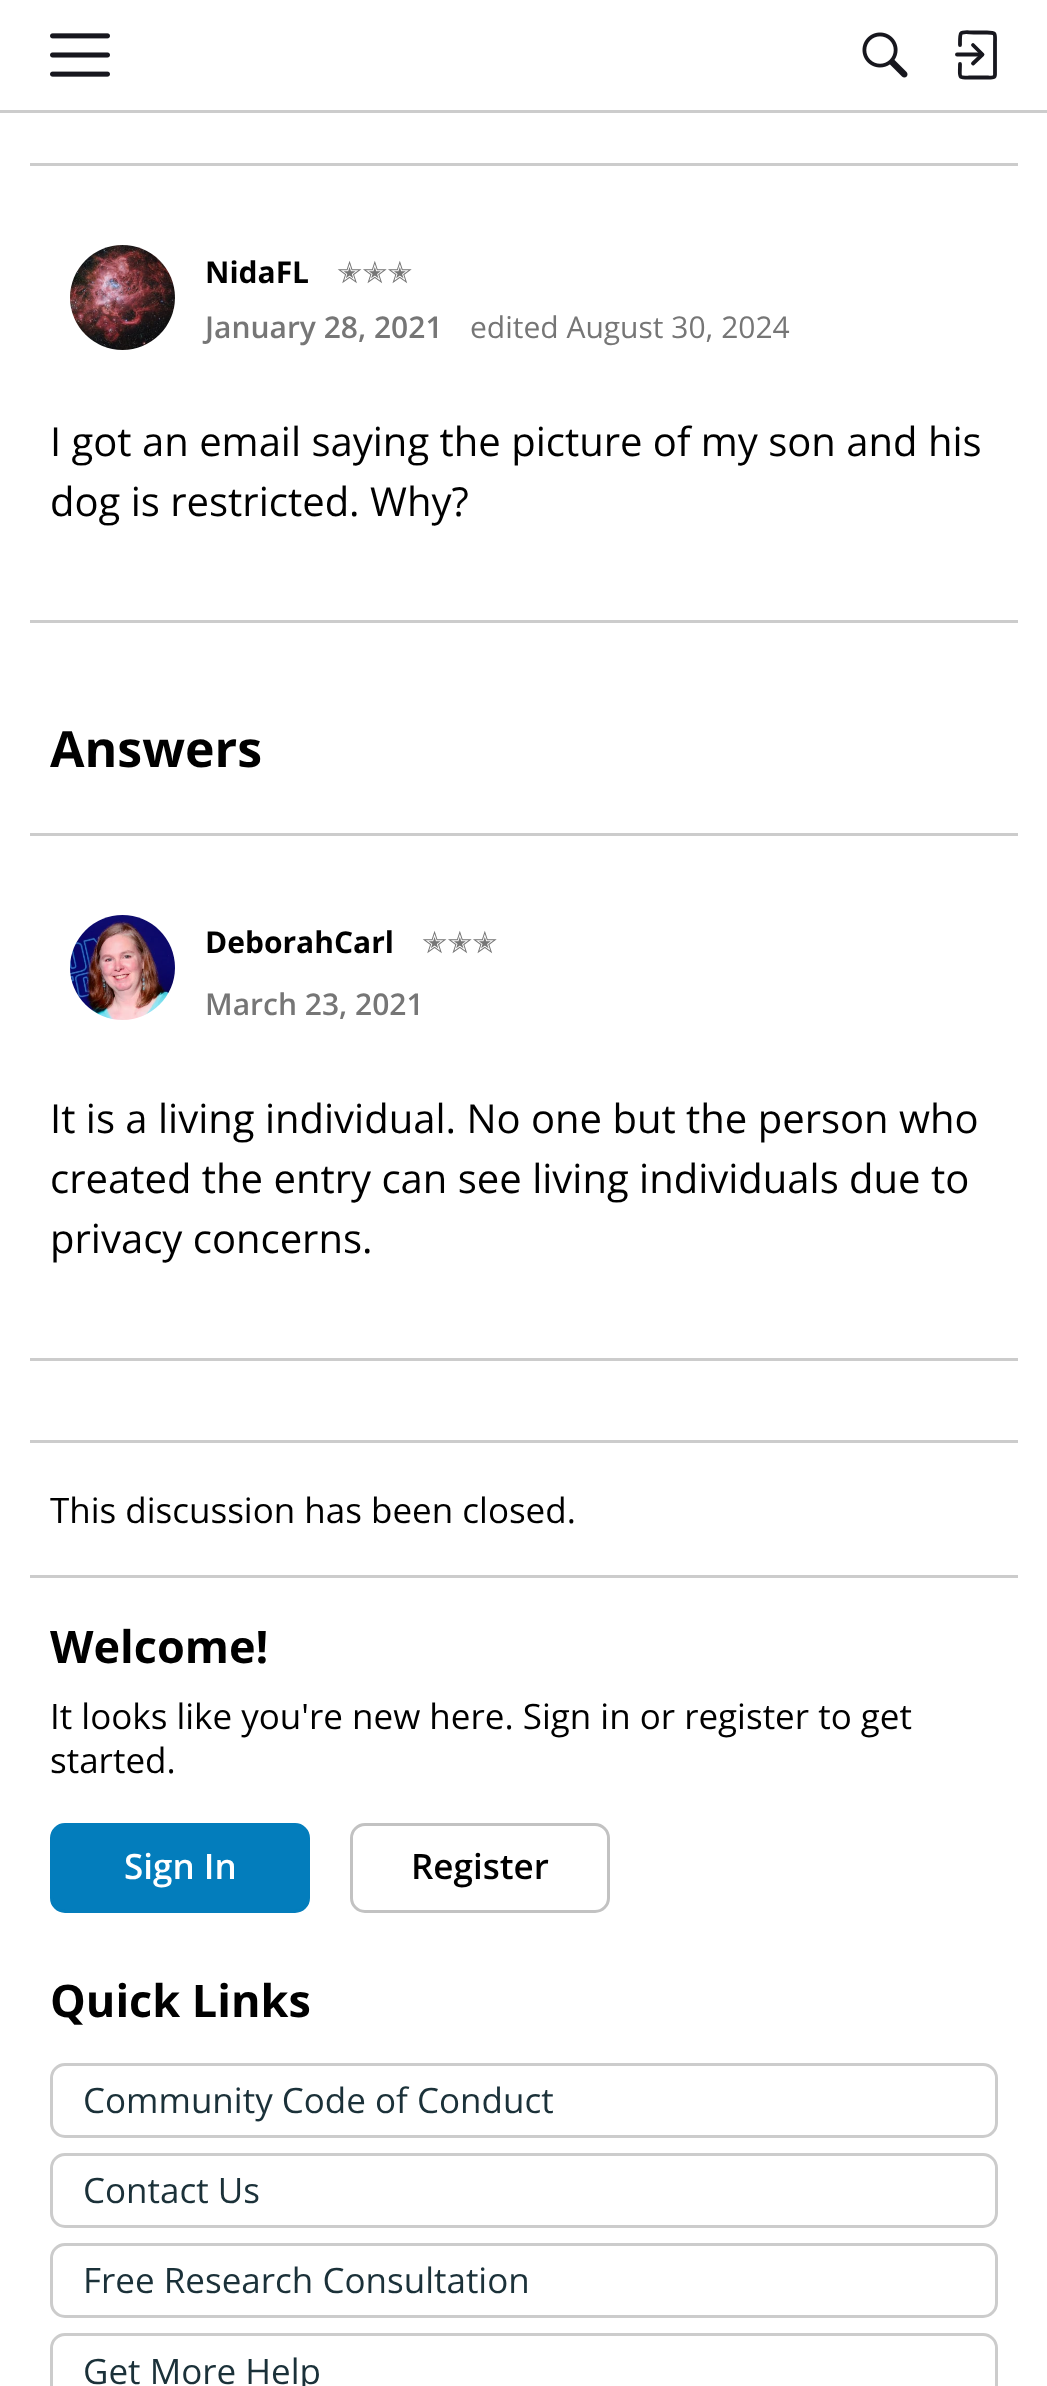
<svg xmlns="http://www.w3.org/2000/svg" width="1047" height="2386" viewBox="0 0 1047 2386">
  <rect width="100%" height="100%" fill="#fff"/>
  <path d="M0 110h1047v3H0z" fill="#ccc"/>
  <image x="50" y="33" width="60" height="44" href="img/1.png"/>
  <image x="862" y="32" width="46" height="46" href="img/2.png"/>
  <path d="M973 63.5L982.5 54.5L973 45" fill="none" stroke="#17171e" stroke-width="3.8" stroke-linecap="round" stroke-linejoin="round"/>
  <path d="M981.5 54.5H957" fill="none" stroke="#17171e" stroke-width="3.8" stroke-linecap="round"/>
  <path d="M960 45C960 29 959 32.5 977.5 32.5H987C996.5 32.5 995 33.5 995 43V74.5C995 78.5 991 77.5 988 77.5H973C957 77.5 960 79 960 64" fill="none" stroke="#17171e" stroke-width="3.8" stroke-linecap="round" stroke-linejoin="round"/>
  <path d="M30 163h988v3H30z" fill="#ccc"/>
  <image x="70" y="245" width="105" height="105" href="img/3.png"/>
  <path d="M30 620h988v3H30z" fill="#ccc"/>
  <path d="M30 833h988v3H30z" fill="#ccc"/>
  <image x="70" y="915" width="105" height="105" href="img/4.png"/>
  <path d="M30 1358h988v3H30z" fill="#ccc"/>
  <path d="M30 1440h988v3H30z" fill="#ccc"/>
  <path d="M30 1575h988v3H30z" fill="#ccc"/>
  <rect x="51.5" y="1824.5" width="257" height="87" rx="13.5" fill="#037dbc" stroke="#037dbc" stroke-width="3"/>
  <rect x="351.5" y="1824.5" width="257" height="87" rx="13.5" fill="none" stroke="#c2c2c2" stroke-width="3"/>
  <rect x="51.5" y="2064.5" width="945" height="72" rx="13.5" fill="none" stroke="#ccc" stroke-width="3"/>
  <rect x="51.5" y="2154.5" width="945" height="72" rx="13.5" fill="none" stroke="#ccc" stroke-width="3"/>
  <rect x="51.5" y="2244.5" width="945" height="72" rx="13.5" fill="none" stroke="#ccc" stroke-width="3"/>
  <rect x="51.5" y="2334.5" width="945" height="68" rx="13.5" fill="none" stroke="#ccc" stroke-width="3"/>
  <text x="205" y="283" font-family="Open Sans" font-size="30" font-weight="bold" fill="#000">NidaFL</text>
  <text x="337" y="283" font-family="DejaVu Sans" font-size="30" fill="#767676">✭✭✭</text>
  <text x="205" y="338" font-family="Open Sans" font-size="30" font-weight="600" fill="#767676">January 28, 2021</text>
  <text x="470" y="338" font-family="Open Sans" font-size="30" fill="#767676">edited August 30, 2024</text>
  <g font-family="Open Sans" font-size="40" fill="#000">
    <text x="50" y="456">I got an email saying the picture of my son and his</text>
    <text x="50" y="516">dog is restricted. Why?</text>
  </g>
  <text x="50" y="767" font-family="Open Sans" font-size="50" font-weight="bold" fill="#000">Answers</text>
  <text x="205" y="953" font-family="Open Sans" font-size="30" font-weight="bold" fill="#000">DeborahCarl</text>
  <text x="422" y="953" font-family="DejaVu Sans" font-size="30" fill="#767676">✭✭✭</text>
  <text x="205" y="1015" font-family="Open Sans" font-size="30" font-weight="600" fill="#767676">March 23, 2021</text>
  <g font-family="Open Sans" font-size="40" fill="#000">
    <text x="50" y="1133">It is a living individual. No one but the person who</text>
    <text x="50" y="1193">created the entry can see living individuals due to</text>
    <text x="50" y="1253">privacy concerns.</text>
  </g>
  <text x="50" y="1523" font-family="Open Sans" font-size="35" fill="#000">This discussion has been closed.</text>
  <text x="50" y="1663" font-family="Open Sans" font-size="45" font-weight="bold" fill="#000">Welcome!</text>
  <g font-family="Open Sans" font-size="35" fill="#000">
    <text x="50" y="1729">It looks like you're new here. Sign in or register to get</text>
    <text x="50" y="1773">started.</text>
  </g>
  <text x="124" y="1879" font-family="Open Sans" font-size="35" font-weight="600" fill="#fff">Sign In</text>
  <text x="411" y="1879" font-family="Open Sans" font-size="35" font-weight="600" fill="#000">Register</text>
  <text x="50" y="2017" font-family="Open Sans" font-size="45" font-weight="bold" fill="#000">Quick Links</text>
  <g font-family="Open Sans" font-size="35" fill="#1b3139">
    <text x="83" y="2113">Community Code of Conduct</text>
    <text x="83" y="2203">Contact Us</text>
    <text x="83" y="2293">Free Research Consultation</text>
    <text x="83" y="2384">Get More Help</text>
  </g>
</svg>
